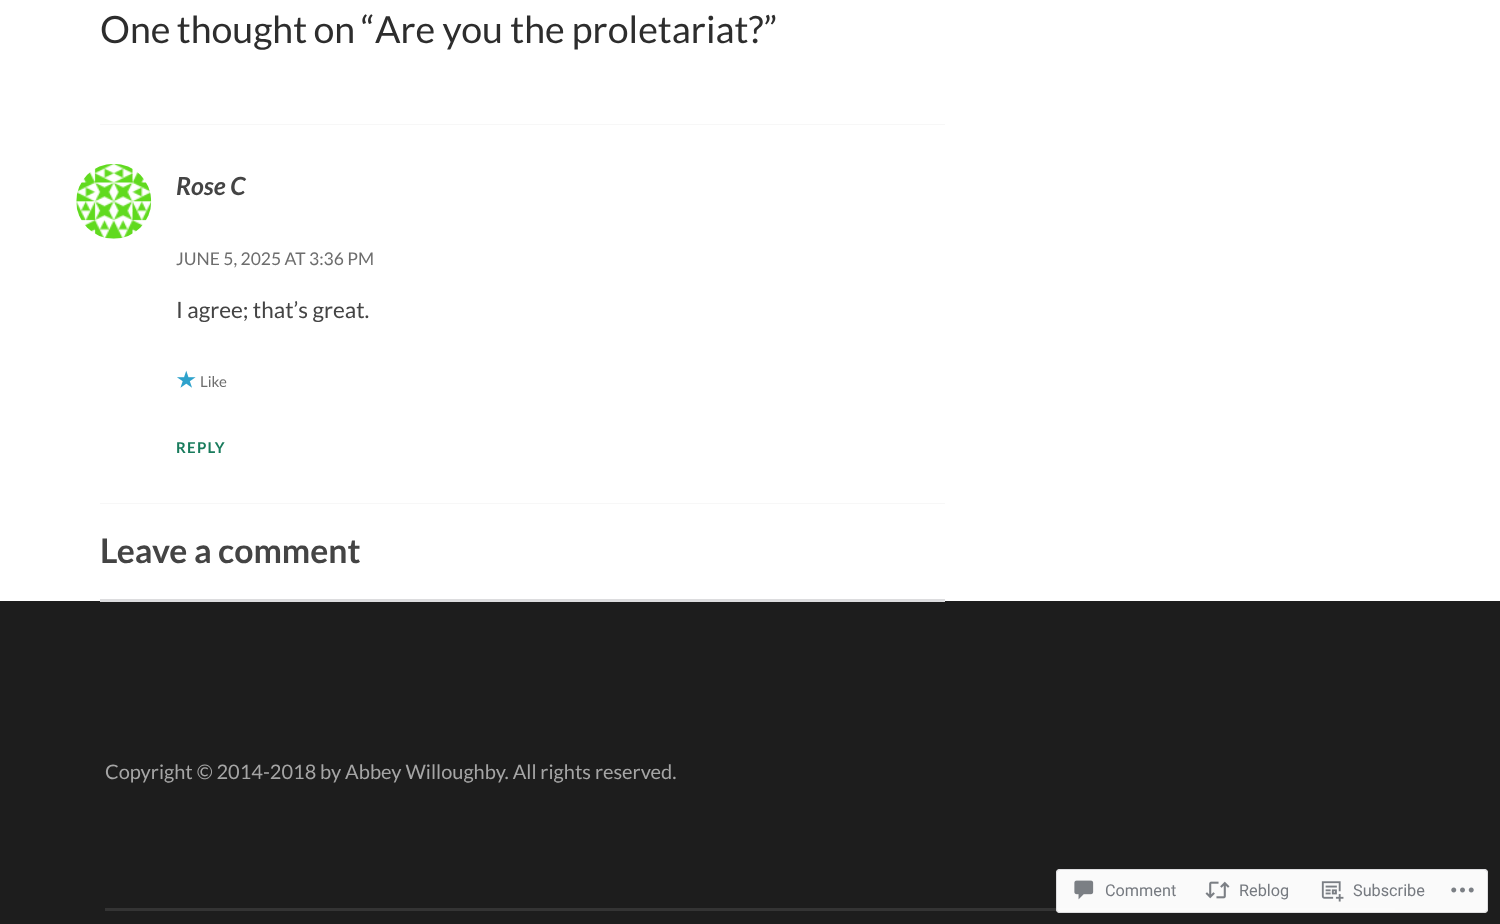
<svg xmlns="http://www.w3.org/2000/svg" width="1500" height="924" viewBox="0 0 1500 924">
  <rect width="100%" height="100%" fill="#fff"/>
  <path d="M100 124h845v1H100z" fill="#f7f7f7"/>
  <path d="M100 503h845v1H100z" fill="#f7f7f7"/>
  <image x="76" y="164" width="76" height="75" href="img/1.png"/>
  <image x="177" y="370" width="19" height="18" href="img/2.png"/>
  <path d="M0 601h1500v323H0z" fill="#1d1d1d"/>
  <path d="M100 599h845v3H100z" fill="#dcdcde"/>
  <path d="M105 908h1290v3H105z" fill="#343434"/>
  <rect x="1056" y="869" width="432" height="44" rx="4" fill="#fffffffa"/>
  <rect x="1056.5" y="869.5" width="431" height="43" rx="3.5" fill="none" stroke="#dcdcdefa"/>
  <image x="1074" y="880" width="20" height="20" href="img/3.png"/>
  <image x="1205" y="881" width="25" height="18" href="img/4.png"/>
  <image x="1321" y="881" width="23" height="21" href="img/5.png"/>
  <image x="1451" y="887" width="23" height="6" href="img/6.png"/>
  <g font-family="Lato" font-size="37.5" fill="#2d2d2d">
    <text x="100" y="43" word-spacing="-1">One thought on “</text>
    <text x="375" y="43">Are you the proletariat?”</text>
  </g>
  <text x="176" y="195" font-family="Lato" font-size="25" font-weight="bold" font-style="italic" fill="#444">Rose C</text>
  <text x="176" y="265" font-family="Lato" font-size="17.5" fill="#6d6d6d">JUNE 5, 2025 AT 3:36 PM</text>
  <text x="176" y="318" font-family="Lato" font-size="22.5" fill="#444">I agree; that’s great.</text>
  <text x="200" y="387" font-family="Lato" font-size="15" fill="#6d6d6d">Like</text>
  <text x="176" y="453" font-family="Lato" font-size="15" font-weight="bold" letter-spacing="1.25" fill="#187b5c">REPLY</text>
  <text x="100" y="563" font-family="Lato" font-size="33.75" font-weight="bold" fill="#444">Leave a comment</text>
  <text x="105" y="779" font-family="Lato" font-size="20" fill="#a5a5a5">Copyright © 2014-2018 by Abbey Willoughby. All rights reserved.</text>
  <g font-family="Roboto" font-size="16.25" fill="#767a80">
    <text x="1105" y="896">Comment</text>
    <text x="1239" y="896">Reblog</text>
    <text x="1353" y="896">Subscribe</text>
  </g>
</svg>
